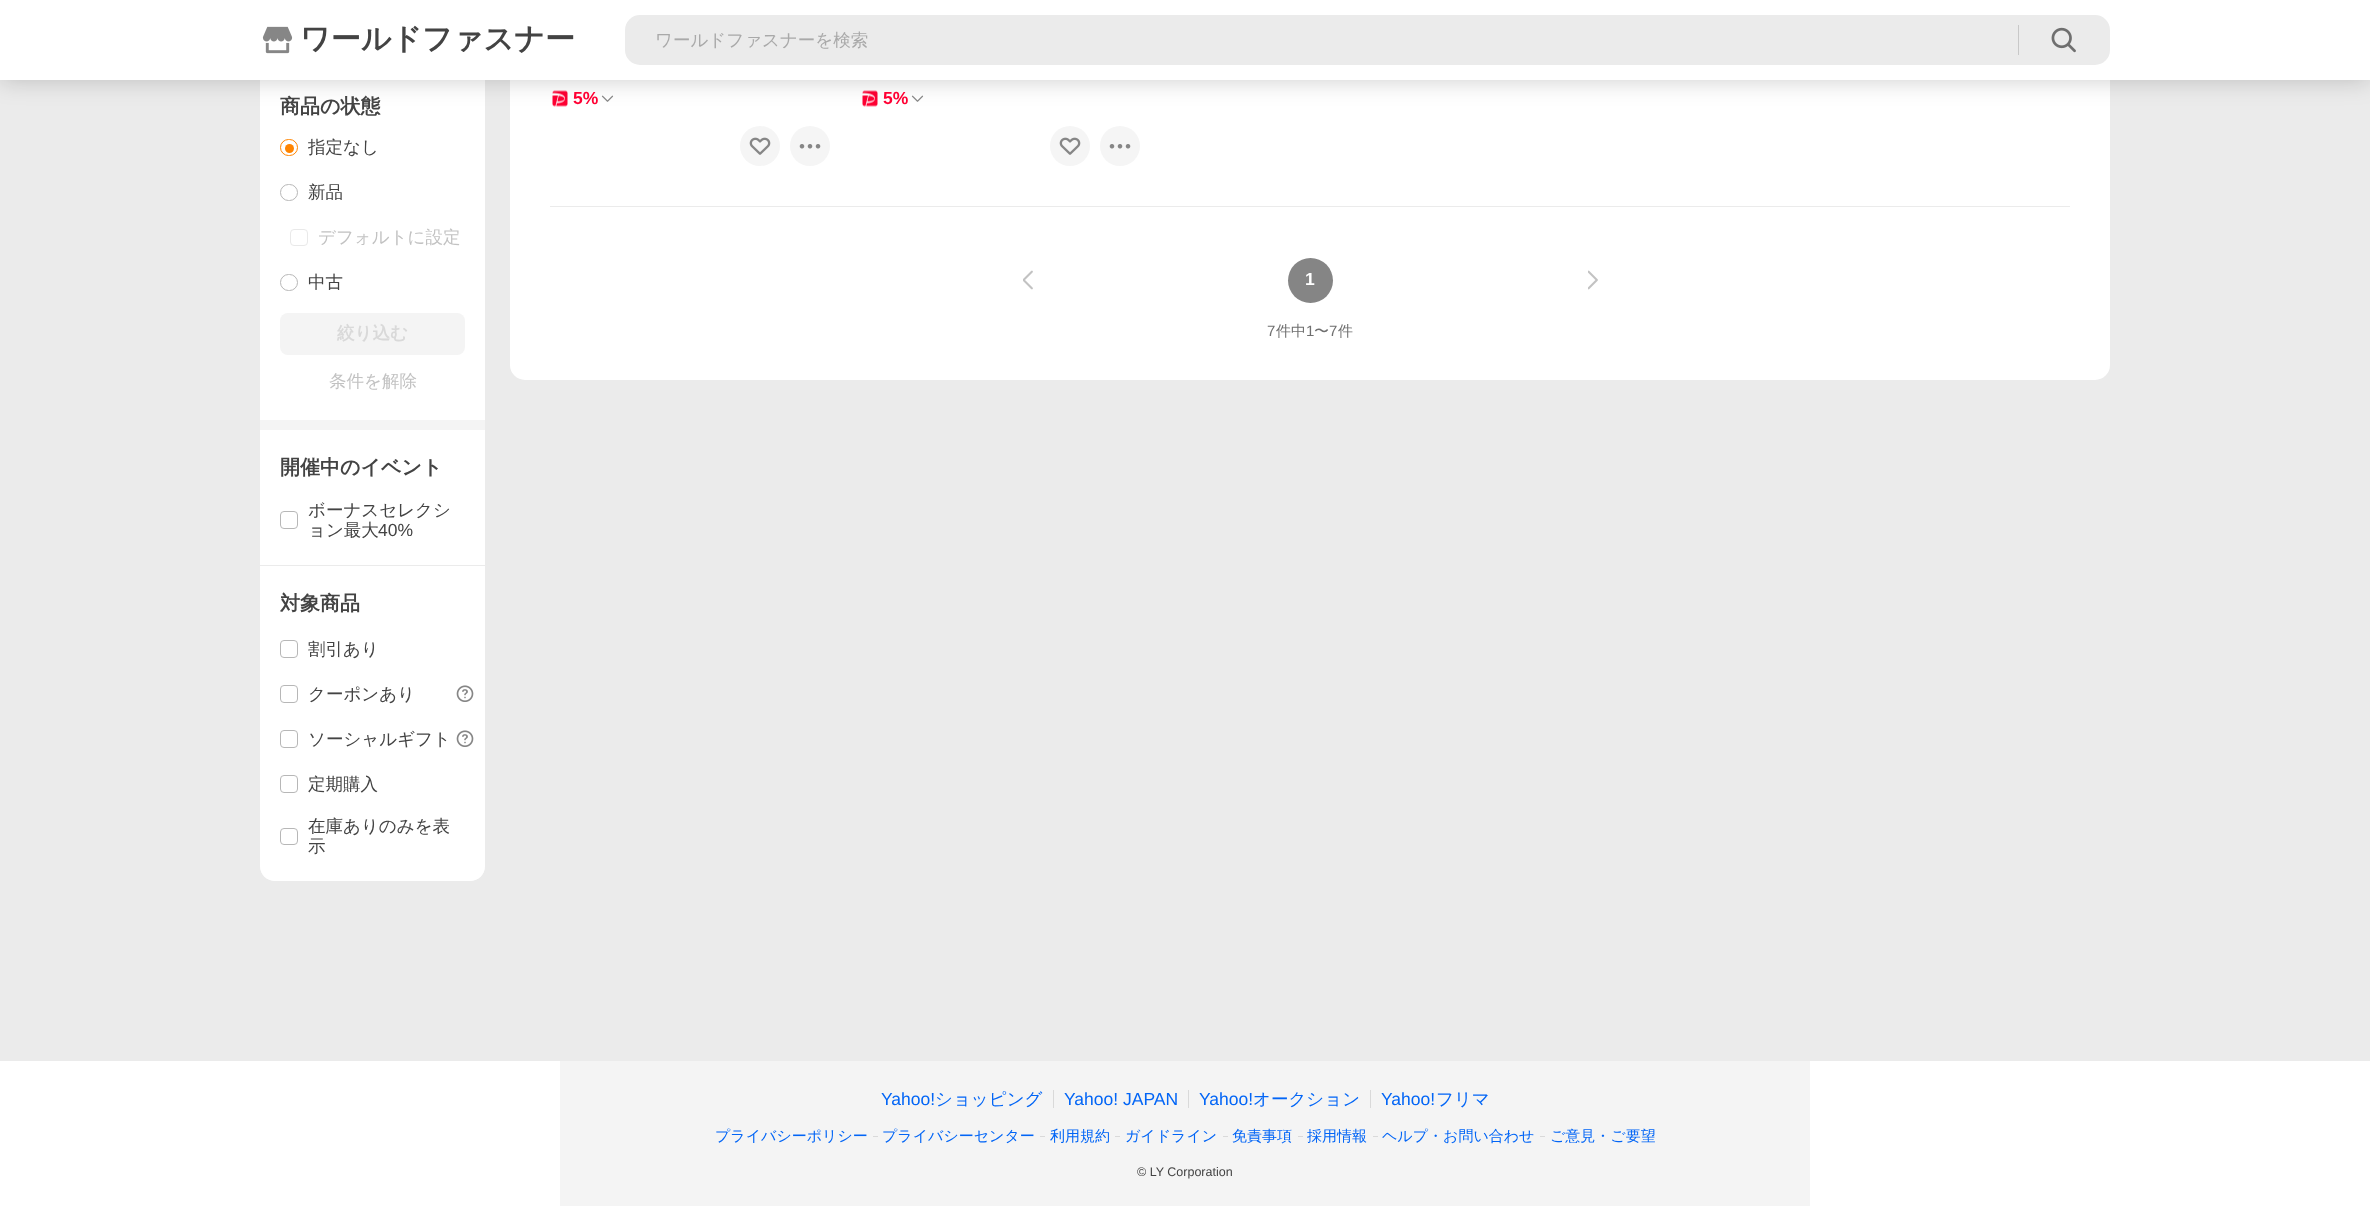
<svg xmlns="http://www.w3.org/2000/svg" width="2370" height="1206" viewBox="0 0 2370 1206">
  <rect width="100%" height="100%" fill="#fff"/>
  <path d="M0 80h2370v981H0z" fill="#ebebeb"/>
  <rect x="260" y="-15" width="225" height="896" rx="15" fill="#f4f4f4"/>
  <path d="M260 80h225v340H260z" fill="#fff"/>
  <rect x="510" y="-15" width="1600" height="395" rx="15" fill="#fff"/>
  <image x="552" y="90" width="16" height="17" href="img/4.png"/>
  <image x="601" y="95" width="13" height="7" href="img/5.png"/>
  <image x="862" y="90" width="16" height="17" href="img/4.png"/>
  <image x="911" y="95" width="13" height="7" href="img/5.png"/>
  <path d="M0 0h2370v80H0z" fill="#00000033" filter="blur(12.5px)"/>
  <path d="M0 0h2370v80H0z" fill="#fff"/>
  <image x="262" y="26" width="31" height="28" href="img/1.png"/>
  <rect x="625" y="15" width="1485" height="50" rx="15" fill="#ebebeb"/>
  <path d="M2018 25h1v30H2018z" fill="#c8c8c8"/>
  <image x="2051" y="27" width="25" height="26" href="img/2.png"/>
  <rect x="280.5" y="139.5" width="17" height="16" rx="8" fill="none" stroke="#ff8400"/>
  <circle cx="289.5" cy="148.5" r="4.5" fill="#ff8400"/>
  <rect x="280.5" y="184.5" width="17" height="16" rx="8" fill="none" stroke="#b7b7b7"/>
  <rect x="290.5" y="229.5" width="17" height="16" rx="3.5" fill="none" stroke="#e9e9e9"/>
  <rect x="280.5" y="274.5" width="17" height="16" rx="8" fill="none" stroke="#b7b7b7"/>
  <rect x="280" y="313" width="185" height="42" rx="8" fill="#f4f4f4"/>
  <path d="M260 430h225v135H260z" fill="#fff"/>
  <rect x="280.5" y="511.5" width="17" height="17" rx="3.5" fill="none" stroke="#b7b7b7"/>
  <path d="M260 565H485V866C485 874.5 478.5 881 470 881H275C266.5 881 260 874.5 260 866Z" fill="#fff"/>
  <path d="M260 565h225v1H260z" fill="#ebebeb"/>
  <rect x="280.5" y="640.5" width="17" height="17" rx="3.5" fill="none" stroke="#b7b7b7"/>
  <rect x="280.5" y="685.5" width="17" height="17" rx="3.5" fill="none" stroke="#b7b7b7"/>
  <image x="456" y="685" width="18" height="17" href="img/3.png"/>
  <rect x="280.5" y="730.5" width="17" height="17" rx="3.5" fill="none" stroke="#b7b7b7"/>
  <image x="456" y="730" width="18" height="17" href="img/3.png"/>
  <rect x="280.5" y="775.5" width="17" height="17" rx="3.5" fill="none" stroke="#b7b7b7"/>
  <rect x="280.5" y="828.5" width="17" height="16" rx="3.5" fill="none" stroke="#b7b7b7"/>
  <circle cx="760" cy="146" r="20" fill="#f5f5f5"/>
  <image x="749" y="137" width="22" height="18" href="img/6.png"/>
  <circle cx="810" cy="146" r="20" fill="#f5f5f5"/>
  <image x="799" y="144" width="22" height="5" href="img/7.png"/>
  <circle cx="1070" cy="146" r="20" fill="#f5f5f5"/>
  <image x="1059" y="137" width="22" height="18" href="img/6.png"/>
  <circle cx="1120" cy="146" r="20" fill="#f5f5f5"/>
  <image x="1109" y="144" width="22" height="5" href="img/7.png"/>
  <path d="M550 206h1520v1H550z" fill="#ebebeb"/>
  <image x="1023" y="270" width="10" height="20" href="img/8.png"/>
  <circle cx="1310.5" cy="280.5" r="22.5" fill="#858585"/>
  <image x="1588" y="270" width="10" height="20" href="img/9.png"/>
  <path d="M560 1061h1250v145H560z" fill="#f4f4f4"/>
  <path d="M1053 1090h1v18H1053z" fill="#d9d9d9"/>
  <path d="M1188 1090h1v18H1188z" fill="#d9d9d9"/>
  <path d="M1370 1090h1v18H1370z" fill="#d9d9d9"/>
  <path d="M873 1136h5v1H873z" fill="#d9d9d9"/>
  <path d="M1040 1136h5v1H1040z" fill="#d9d9d9"/>
  <path d="M1115 1136h5v1H1115z" fill="#d9d9d9"/>
  <path d="M1223 1136h5v1H1223z" fill="#d9d9d9"/>
  <path d="M1298 1136h5v1H1298z" fill="#d9d9d9"/>
  <path d="M1373 1136h5v1H1373z" fill="#d9d9d9"/>
  <path d="M1540 1136h5v1H1540z" fill="#d9d9d9"/>
  <text x="300" y="49" font-family="WenQuanYi Zen Hei" font-size="30" font-weight="bold" fill="#434343">ワールドファスナー</text>
  <text x="655" y="46" font-family="WenQuanYi Zen Hei" font-size="17.5" font-weight="500" fill="#a9a9a9">ワールドファスナーを検索</text>
  <text x="280" y="113" font-family="WenQuanYi Zen Hei" font-size="20" font-weight="bold" fill="#434343">商品の状態</text>
  <g font-family="WenQuanYi Zen Hei" font-size="17.5" font-weight="500" fill="#434343">
    <text x="308" y="153">指定なし</text>
    <text x="308" y="198">新品</text>
  </g>
  <text x="318" y="243" font-family="WenQuanYi Zen Hei" font-size="17.5" font-weight="500" fill="#c2c2c2">デフォルトに設定</text>
  <text x="308" y="288" font-family="WenQuanYi Zen Hei" font-size="17.5" font-weight="500" fill="#434343">中古</text>
  <text x="337" y="339" font-family="WenQuanYi Zen Hei" font-size="17.5" font-weight="bold" fill="#d9d9d9">絞り込む</text>
  <text x="329" y="387" font-family="WenQuanYi Zen Hei" font-size="17.5" font-weight="500" fill="#c2c2c2">条件を解除</text>
  <text x="280" y="474" font-family="WenQuanYi Zen Hei" font-size="20" font-weight="bold" fill="#434343">開催中のイベント</text>
  <g font-family="WenQuanYi Zen Hei" font-size="17.5" font-weight="500" fill="#434343">
    <text x="308" y="516">ボーナスセレクシ</text>
    <text x="308" y="536">ョン最大</text>
  </g>
  <text x="378" y="536" font-family="Liberation Sans" font-size="17.5" fill="#434343">40%</text>
  <text x="280" y="610" font-family="WenQuanYi Zen Hei" font-size="20" font-weight="bold" fill="#434343">対象商品</text>
  <g font-family="WenQuanYi Zen Hei" font-size="17.5" font-weight="500" fill="#434343">
    <text x="308" y="655">割引あり</text>
    <text x="308" y="700">クーポンあり</text>
    <text x="308" y="745">ソーシャルギフト</text>
    <text x="308" y="790">定期購入</text>
    <text x="308" y="832">在庫ありのみを表</text>
    <text x="308" y="852">示</text>
  </g>
  <g font-family="Liberation Sans" font-size="17.5" font-weight="bold" fill="#f03">
    <text x="573" y="104">5%</text>
    <text x="883" y="104">5%</text>
  </g>
  <text x="1305" y="285" font-family="Liberation Sans" font-size="17.5" font-weight="bold" fill="#fff">1</text>
  <text x="1267" y="336" font-family="Liberation Sans" font-size="15" fill="#6f6f6f">7</text>
  <text x="1276" y="336" font-family="WenQuanYi Zen Hei" font-size="15" font-weight="500" fill="#6f6f6f">件中</text>
  <text x="1306" y="336" font-family="Liberation Sans" font-size="15" fill="#6f6f6f">1</text>
  <text x="1314" y="336" font-family="WenQuanYi Zen Hei" font-size="15" font-weight="500" fill="#6f6f6f">〜</text>
  <text x="1329" y="336" font-family="Liberation Sans" font-size="15" fill="#6f6f6f">7</text>
  <text x="1338" y="336" font-family="WenQuanYi Zen Hei" font-size="15" font-weight="500" fill="#6f6f6f">件</text>
  <text x="881" y="1105" font-family="Liberation Sans" font-size="17.5" fill="#0265f6">Yahoo!</text>
  <text x="935" y="1105" font-family="WenQuanYi Zen Hei" font-size="17.5" font-weight="500" fill="#0265f6">ショッピング</text>
  <g font-family="Liberation Sans" font-size="17.5" fill="#0265f6">
    <text x="1064" y="1105">Yahoo! JAPAN</text>
    <text x="1199" y="1105">Yahoo!</text>
  </g>
  <text x="1253" y="1105" font-family="WenQuanYi Zen Hei" font-size="17.5" font-weight="500" fill="#0265f6">オークション</text>
  <text x="1381" y="1105" font-family="Liberation Sans" font-size="17.5" fill="#0265f6">Yahoo!</text>
  <text x="1436" y="1105" font-family="WenQuanYi Zen Hei" font-size="17.5" font-weight="500" fill="#0265f6">フリマ</text>
  <g font-family="WenQuanYi Zen Hei" font-size="15" font-weight="500" fill="#0265f6">
    <text x="715" y="1141">プライバシーポリシー</text>
    <text x="882" y="1141">プライバシーセンター</text>
    <text x="1050" y="1141">利用規約</text>
    <text x="1125" y="1141">ガイドライン</text>
    <text x="1232" y="1141">免責事項</text>
    <text x="1307" y="1141">採用情報</text>
    <text x="1382" y="1141">ヘルプ・お問い合わせ</text>
    <text x="1550" y="1141">ご意見・ご要望</text>
  </g>
  <text x="1137" y="1176" font-family="Liberation Sans" font-size="12.5" fill="#434343">© LY Corporation</text>
</svg>
